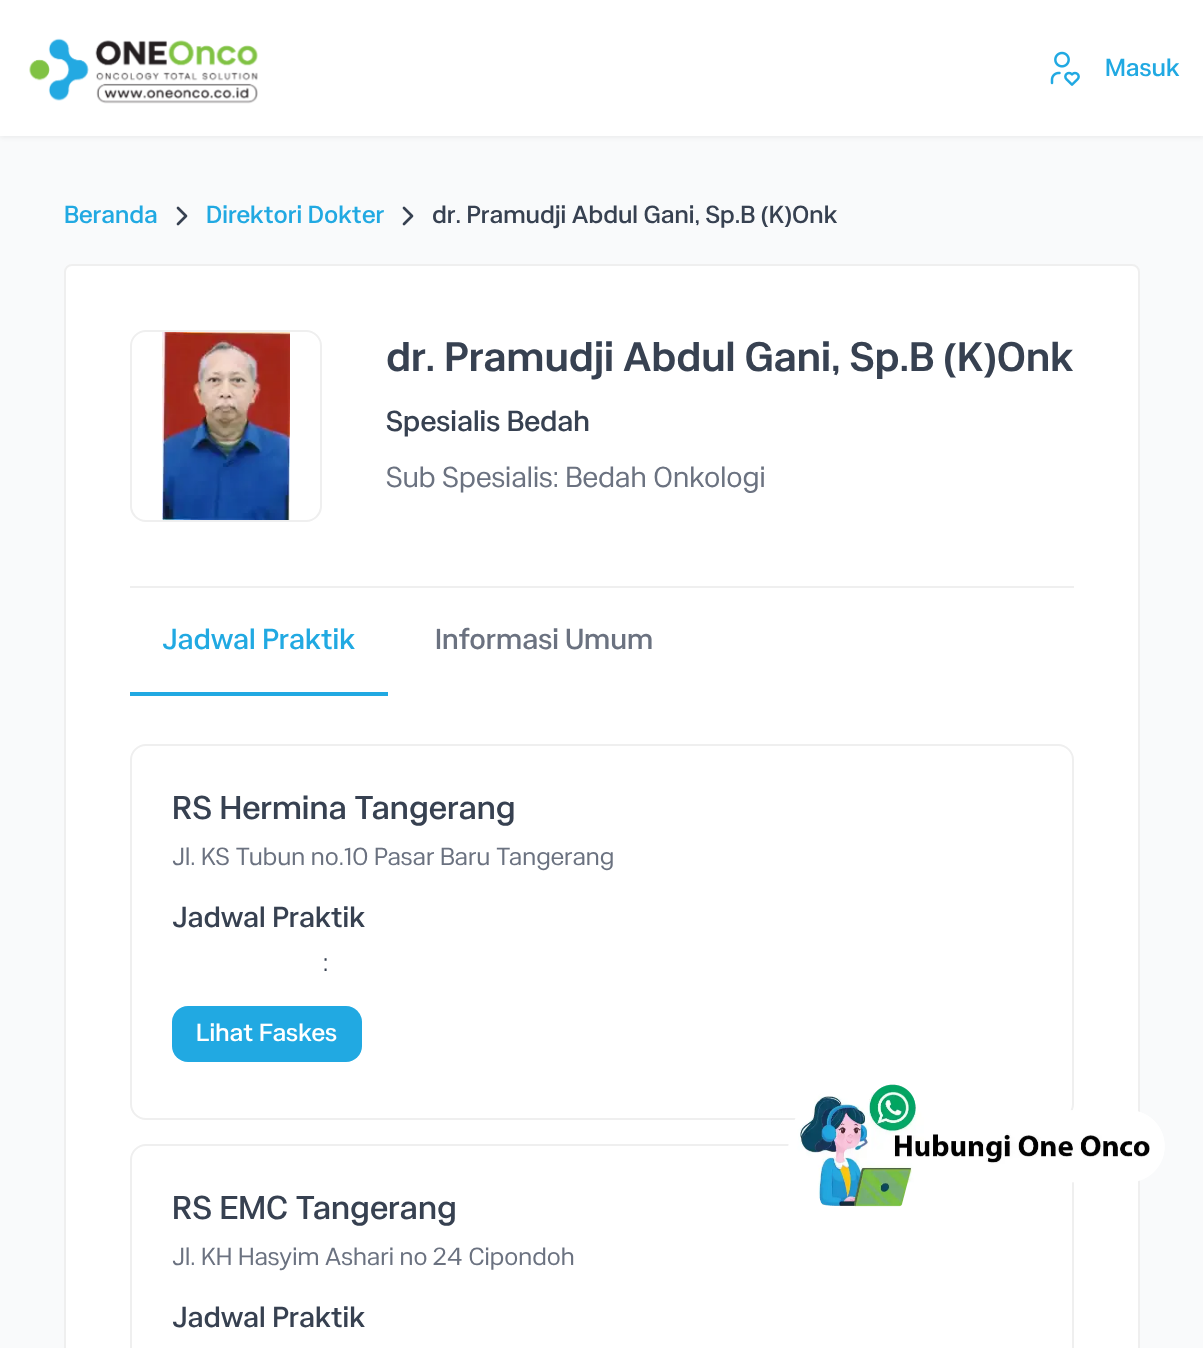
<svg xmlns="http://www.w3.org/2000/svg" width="1203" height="1348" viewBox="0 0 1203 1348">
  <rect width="100%" height="100%" fill="#f9fafb"/>
  <path d="M0 2h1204v136H0z" fill="#0000000d" filter="blur(2px)"/>
  <path d="M0 0h1203v136H0z" fill="#fff"/>
  <image x="29" y="38" width="229" height="66" href="img/1.png"/>
  <image x="1050" y="51" width="30" height="35" href="img/2.png"/>
  <path d="M178 208L186 216L178 224" fill="none" stroke="#374151" stroke-width="2.7" stroke-linecap="round" stroke-linejoin="round"/>
  <path d="M404 208L412 216L404 224" fill="none" stroke="#374151" stroke-width="2.7" stroke-linecap="round" stroke-linejoin="round"/>
  <rect x="65" y="265" width="1074" height="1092" rx="7" fill="#fff" stroke="#efefef" stroke-width="2"/>
  <rect x="131" y="331" width="190" height="190" rx="15" fill="none" stroke="#efefef" stroke-width="2"/>
  <image x="162" y="332" width="128" height="188" href="img/3.png"/>
  <path d="M130 586h944v2H130z" fill="#efefef"/>
  <path d="M130 692h258v4H130z" fill="#21a9e2"/>
  <rect x="131" y="745" width="942" height="374" rx="15" fill="none" stroke="#efefef" stroke-width="2"/>
  <rect x="172" y="1006" width="190" height="56" rx="16" fill="#21a9e2"/>
  <rect x="131" y="1145" width="942" height="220" rx="15" fill="none" stroke="#efefef" stroke-width="2"/>
  <image x="788" y="1084" width="377" height="123" href="img/4.png"/>
  <g font-family="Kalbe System" font-size="24" font-weight="500" fill="#21a9e2">
    <text x="1105" y="76">Masuk</text>
    <text x="64" y="223">Beranda</text>
    <text x="206" y="223">Direktori Dokter</text>
  </g>
  <text x="432" y="223" font-family="Kalbe System" font-size="24" font-weight="500" fill="#374151">dr. Pramudji Abdul Gani, Sp.B (K)Onk</text>
  <text x="386" y="371" font-family="Kalbe System" font-size="40" font-weight="600" fill="#374151">dr. Pramudji Abdul Gani, Sp.B (K)Onk</text>
  <text x="386" y="431" font-family="Kalbe System" font-size="28" font-weight="500" fill="#374151">Spesialis Bedah</text>
  <text x="386" y="487" font-family="Kalbe System" font-size="28" fill="#6b7280">Sub Spesialis: Bedah Onkologi</text>
  <text x="162" y="649" font-family="Kalbe System" font-size="28" font-weight="500" fill="#21a9e2">Jadwal Praktik</text>
  <text x="435" y="649" font-family="Kalbe System" font-size="28" font-weight="500" fill="#6b7280">Informasi Umum</text>
  <text x="172" y="819" font-family="Kalbe System" font-size="32" font-weight="500" fill="#374151">RS Hermina Tangerang</text>
  <text x="172" y="865" font-family="Kalbe System" font-size="24" fill="#6b7280">Jl. KS Tubun no.10 Pasar Baru Tangerang</text>
  <text x="172" y="927" font-family="Kalbe System" font-size="28" font-weight="500" fill="#374151">Jadwal Praktik</text>
  <text x="323" y="971" font-family="Kalbe System" font-size="24" fill="#374151">:</text>
  <text x="196" y="1041" font-family="Kalbe System" font-size="24" font-weight="500" fill="#fff">Lihat Faskes</text>
  <text x="172" y="1219" font-family="Kalbe System" font-size="32" font-weight="500" fill="#374151">RS EMC Tangerang</text>
  <text x="172" y="1265" font-family="Kalbe System" font-size="24" fill="#6b7280">Jl. KH Hasyim Ashari no 24 Cipondoh</text>
  <text x="172" y="1327" font-family="Kalbe System" font-size="28" font-weight="500" fill="#374151">Jadwal Praktik</text>
</svg>
